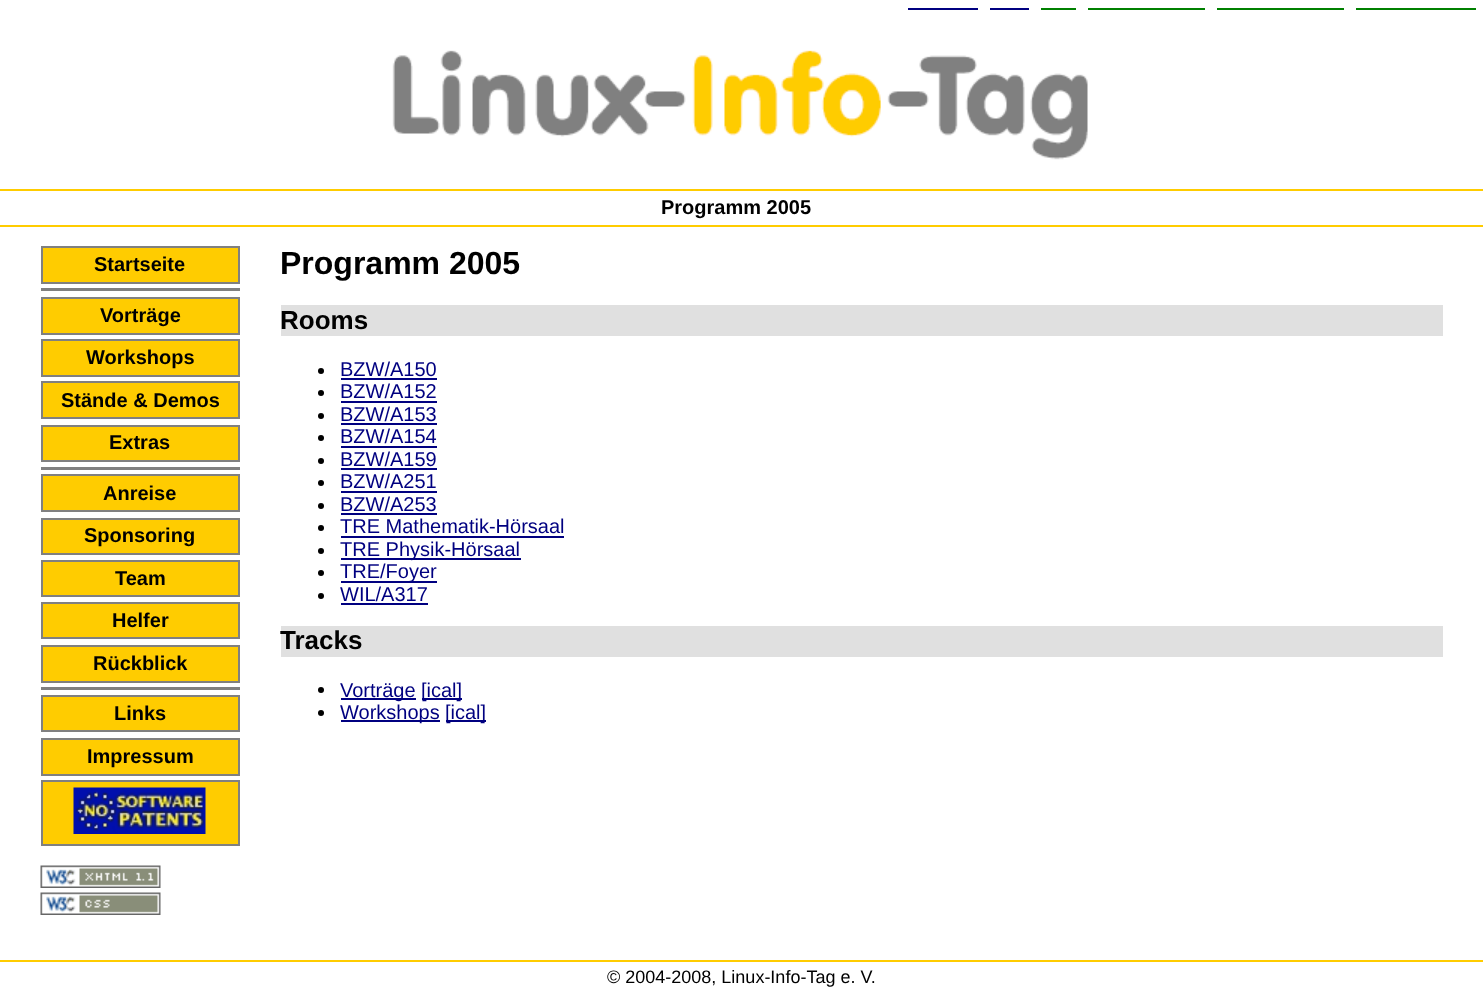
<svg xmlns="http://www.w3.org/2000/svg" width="1483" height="989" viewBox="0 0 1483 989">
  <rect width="100%" height="100%" fill="#fff"/>
  <path d="M908 8h70v2H908z" fill="#000080"/>
  <path d="M990 8h39v2H990z" fill="#000080"/>
  <path d="M1041 8h35v2H1041z" fill="#008000"/>
  <path d="M1088 8h117v2H1088z" fill="#008000"/>
  <path d="M1217 8h127v2H1217z" fill="#008000"/>
  <path d="M1356 8h120v2H1356z" fill="#008000"/>
  <image x="392" y="50" width="696" height="110" href="img/1.png"/>
  <path d="M0 189h1483v2H0z" fill="#fc0"/>
  <path d="M0 225h1483v2H0z" fill="#fc0"/>
  <path d="M42 247h197v36H42z" fill="#fc0" stroke="#808080" stroke-width="2"/>
  <path d="M41 288h199v3H41z" fill="#808080"/>
  <path d="M42 298h197v36H42z" fill="#fc0" stroke="#808080" stroke-width="2"/>
  <path d="M42 340h197v36H42z" fill="#fc0" stroke="#808080" stroke-width="2"/>
  <path d="M42 382h197v36H42z" fill="#fc0" stroke="#808080" stroke-width="2"/>
  <path d="M42 426h197v35H42z" fill="#fc0" stroke="#808080" stroke-width="2"/>
  <path d="M41 467h199v3H41z" fill="#808080"/>
  <path d="M42 475h197v36H42z" fill="#fc0" stroke="#808080" stroke-width="2"/>
  <path d="M42 519h197v35H42z" fill="#fc0" stroke="#808080" stroke-width="2"/>
  <path d="M42 561h197v35H42z" fill="#fc0" stroke="#808080" stroke-width="2"/>
  <path d="M42 603h197v35H42z" fill="#fc0" stroke="#808080" stroke-width="2"/>
  <path d="M42 646h197v36H42z" fill="#fc0" stroke="#808080" stroke-width="2"/>
  <path d="M41 687h199v3H41z" fill="#808080"/>
  <path d="M42 696h197v35H42z" fill="#fc0" stroke="#808080" stroke-width="2"/>
  <path d="M42 739h197v36H42z" fill="#fc0" stroke="#808080" stroke-width="2"/>
  <path d="M42 781h197v64H42z" fill="#fc0" stroke="#808080" stroke-width="2"/>
  <image x="73" y="787" width="133" height="47" href="img/2.png"/>
  <image x="40" y="865" width="121" height="23" href="img/3.png"/>
  <image x="40" y="892" width="121" height="23" href="img/4.png"/>
  <path d="M281 305h1162v31H281z" fill="#e0e0e0"/>
  <circle cx="321" cy="371" r="3" fill="#000"/>
  <path d="M341 378h96v2H341z" fill="#000080"/>
  <circle cx="321" cy="393" r="3" fill="#000"/>
  <path d="M341 401h96v2H341z" fill="#000080"/>
  <circle cx="321" cy="416" r="3" fill="#000"/>
  <path d="M341 423h96v2H341z" fill="#000080"/>
  <circle cx="321" cy="438" r="3" fill="#000"/>
  <path d="M341 446h96v2H341z" fill="#000080"/>
  <circle cx="321" cy="461" r="3" fill="#000"/>
  <path d="M341 468h96v2H341z" fill="#000080"/>
  <circle cx="321" cy="483" r="3" fill="#000"/>
  <path d="M341 491h96v2H341z" fill="#000080"/>
  <circle cx="321" cy="506" r="3" fill="#000"/>
  <path d="M341 513h96v2H341z" fill="#000080"/>
  <circle cx="321" cy="528" r="3" fill="#000"/>
  <path d="M341 536h223v2H341z" fill="#000080"/>
  <circle cx="321" cy="551" r="3" fill="#000"/>
  <path d="M341 558h180v2H341z" fill="#000080"/>
  <circle cx="321" cy="573" r="3" fill="#000"/>
  <path d="M341 581h96v2H341z" fill="#000080"/>
  <circle cx="321" cy="596" r="3" fill="#000"/>
  <path d="M341 603h87v2H341z" fill="#000080"/>
  <path d="M281 626h1162v31H281z" fill="#e0e0e0"/>
  <circle cx="321" cy="690" r="3" fill="#000"/>
  <path d="M341 698h75v2H341z" fill="#000080"/>
  <path d="M422 698h40v2H422z" fill="#000080"/>
  <circle cx="321" cy="713" r="3" fill="#000"/>
  <path d="M341 720h99v2H341z" fill="#000080"/>
  <path d="M446 720h40v2H446z" fill="#000080"/>
  <path d="M0 960h1483v2H0z" fill="#fc0"/>
  <g font-family="Liberation Sans" font-size="20" font-weight="bold" fill="#000">
    <text x="661" y="214">Programm 2005</text>
    <text x="94" y="271">Startseite</text>
    <text x="100" y="322">Vorträge</text>
    <text x="86" y="364">Workshops</text>
    <text x="61" y="407">Stände &amp; Demos</text>
    <text x="109" y="449">Extras</text>
    <text x="103" y="500">Anreise</text>
    <text x="84" y="542">Sponsoring</text>
    <text x="115" y="585">Team</text>
    <text x="112" y="627">Helfer</text>
    <text x="93" y="670">Rückblick</text>
    <text x="114" y="720">Links</text>
    <text x="87" y="763">Impressum</text>
  </g>
  <text x="280" y="274" font-family="Liberation Sans" font-size="32" font-weight="bold" fill="#000">Programm 2005</text>
  <text x="280" y="329" font-family="Liberation Sans" font-size="26" font-weight="bold" fill="#000">Rooms</text>
  <g font-family="Liberation Sans" font-size="20" fill="#000080">
    <text x="340" y="376">BZW/A150</text>
    <text x="340" y="398">BZW/A152</text>
    <text x="340" y="421">BZW/A153</text>
    <text x="340" y="443">BZW/A154</text>
    <text x="340" y="466">BZW/A159</text>
    <text x="340" y="488">BZW/A251</text>
    <text x="340" y="511">BZW/A253</text>
    <text x="340" y="533">TRE Mathematik-Hörsaal</text>
    <text x="340" y="556">TRE Physik-Hörsaal</text>
    <text x="340" y="578">TRE/Foyer</text>
    <text x="340" y="601">WIL/A317</text>
  </g>
  <text x="280" y="649" font-family="Liberation Sans" font-size="26" font-weight="bold" fill="#000">Tracks</text>
  <g font-family="Liberation Sans" font-size="20" fill="#000080">
    <text x="340" y="697">Vorträge</text>
    <text x="421" y="697">[ical]</text>
    <text x="340" y="719">Workshops</text>
    <text x="445" y="719">[ical]</text>
  </g>
  <text x="607" y="983" font-family="Liberation Sans" font-size="18" fill="#000">© 2004-2008, Linux-Info-Tag e. V.</text>
</svg>
